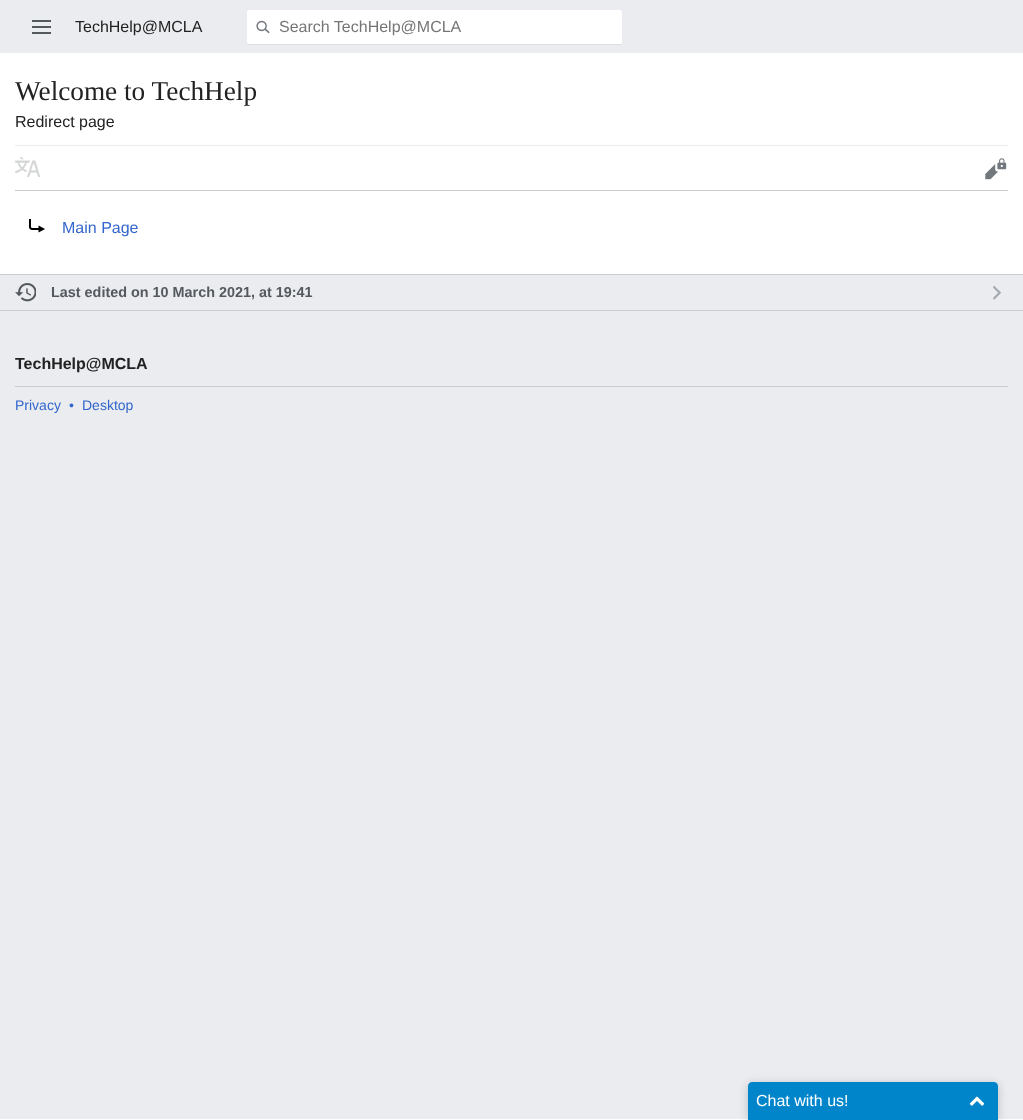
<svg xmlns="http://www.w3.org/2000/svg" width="1023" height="1120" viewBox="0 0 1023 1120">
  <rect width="100%" height="100%" fill="#fff"/>
  <path d="M0 0h1023v1119H0z" fill="#eaecf0"/>
  <image x="32" y="20" width="19" height="14" href="img/1.png"/>
  <rect x="247" y="11" width="375" height="34" rx="2" fill="#0000000d" filter="blur(0.5px)"/>
  <rect x="247" y="10" width="375" height="34" rx="2" fill="#fff"/>
  <image x="256" y="20" width="14" height="14" href="img/2.png"/>
  <path d="M0 53h1023v221H0z" fill="#fff"/>
  <path d="M15 145h993v1H15z" fill="#eaecf0"/>
  <path d="M15 190h993v1H15z" fill="#c8ccd1"/>
  <image x="15" y="157" width="26" height="20" href="img/3.png"/>
  <image x="985" y="158" width="22" height="22" href="img/4.png"/>
  <image x="29" y="219" width="16" height="14" href="img/5.png"/>
  <path d="M0 274h1023v1H0z" fill="#c8ccd1"/>
  <path d="M0 310h1023v1H0z" fill="#c8ccd1"/>
  <image x="15" y="283" width="21" height="19" href="img/6.png"/>
  <image x="993" y="285" width="8" height="15" href="img/7.png"/>
  <path d="M15 386h993v1H15z" fill="#c8ccd1"/>
  <rect x="748" y="1084" width="250" height="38" rx="4" fill="#00000033" filter="blur(5px)"/>
  <path d="M752 1082H994C996 1082 998 1084 998 1086V1120H748V1086C748 1084 750 1082 752 1082Z" fill="#0085ca"/>
  <image x="969" y="1096" width="16" height="10" href="img/8.png"/>
  <text x="75" y="32" font-family="Liberation Sans" font-size="16" fill="#222">TechHelp@MCLA</text>
  <text x="279" y="32" font-family="Liberation Sans" font-size="16" fill="#757575">Search TechHelp@MCLA</text>
  <text x="15" y="100" font-family="Liberation Serif" font-size="27.25" fill="#222">Welcome to TechHelp</text>
  <text x="15" y="127" font-family="Liberation Sans" font-size="16" fill="#222">Redirect page</text>
  <text x="62" y="233" font-family="Liberation Sans" font-size="16" fill="#36c">Main Page</text>
  <text x="51" y="297" font-family="Liberation Sans" font-size="14.4" font-weight="bold" fill="#54595d">Last edited on 10 March 2021, at 19:41</text>
  <text x="15" y="369" font-family="Liberation Sans" font-size="16" font-weight="bold" fill="#222">TechHelp@MCLA</text>
  <g font-family="Liberation Sans" font-size="14" fill="#36c">
    <text x="15" y="410">Privacy</text>
    <text x="69" y="410">•</text>
    <text x="82" y="410">Desktop</text>
  </g>
  <text x="756" y="1106" font-family="Liberation Sans" font-size="16" fill="#fff">Chat with us!</text>
</svg>
